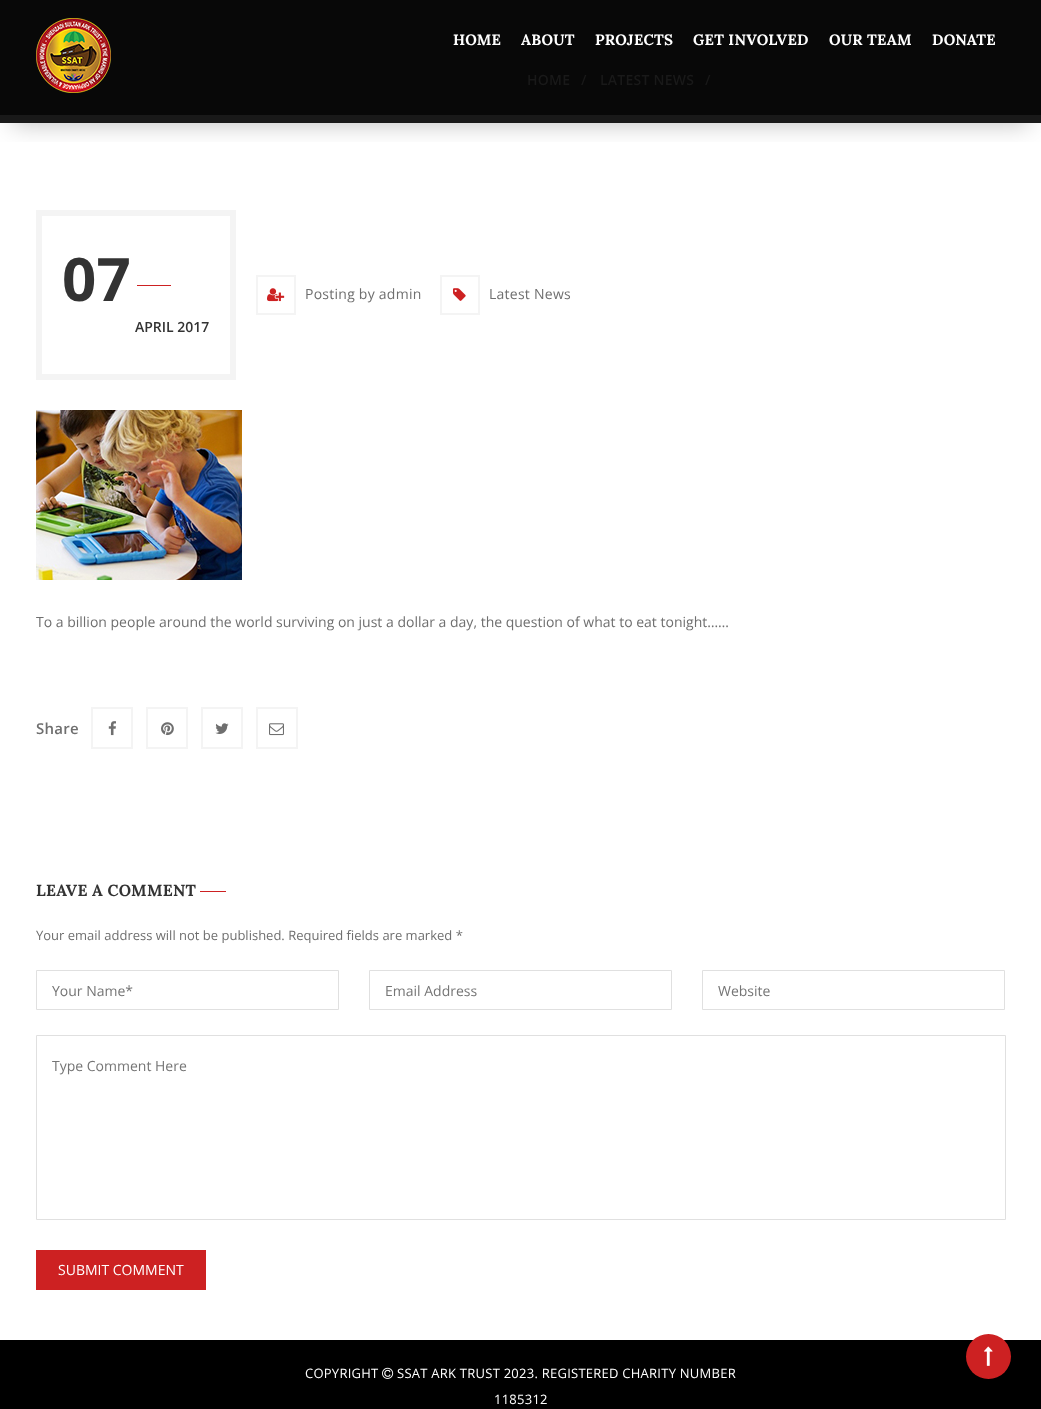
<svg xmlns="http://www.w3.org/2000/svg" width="1041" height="1409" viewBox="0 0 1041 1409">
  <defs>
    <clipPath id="clip1"><path d="M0 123h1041v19H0z"/></clipPath>
  </defs>
  <rect width="100%" height="100%" fill="#fff"/>
  <path d="M0 115h1041v8H0z" fill="#191919"/>
  <path d="M0 0h1041v115H0z" fill="#080808"/>
  <g clip-path="url(#clip1)">
    <path d="M12 25h1017v99H12z" fill="#00000040" filter="blur(12.5px)"/>
  </g>
  <image x="36" y="18" width="75" height="75" href="img/1.png"/>
  <path d="M39 213h194v164H39z" fill="none" stroke="#f4f4f4" stroke-width="6"/>
  <path d="M137 285h34v1H137z" fill="#cd2122"/>
  <path d="M257 276h38v38H257z" fill="none" stroke="#f4f4f4" stroke-width="2"/>
  <image x="267" y="288" width="18" height="14" href="img/2.png"/>
  <path d="M441 276h38v38H441z" fill="none" stroke="#f4f4f4" stroke-width="2"/>
  <image x="453" y="288" width="13" height="13" href="img/3.png"/>
  <image x="36" y="410" width="206" height="170" href="img/4.png"/>
  <path d="M92 708h40v40H92z" fill="none" stroke="#f4f4f4" stroke-width="2"/>
  <image x="108" y="721" width="8" height="15" href="img/5.png"/>
  <path d="M147 708h40v40H147z" fill="none" stroke="#f4f4f4" stroke-width="2"/>
  <image x="161" y="722" width="13" height="14" href="img/6.png"/>
  <path d="M202 708h40v40H202z" fill="none" stroke="#f4f4f4" stroke-width="2"/>
  <image x="215" y="723" width="14" height="11" href="img/7.png"/>
  <path d="M257 708h40v40H257z" fill="none" stroke="#f4f4f4" stroke-width="2"/>
  <image x="269" y="723" width="15" height="13" href="img/8.png"/>
  <path d="M200 891h26v1H200z" fill="#cd2122"/>
  <path d="M36.5 970.5h302v39H36.5z" fill="none" stroke="#e0e0e0"/>
  <path d="M369.5 970.5h302v39H369.5z" fill="none" stroke="#e0e0e0"/>
  <path d="M702.5 970.5h302v39H702.5z" fill="none" stroke="#e0e0e0"/>
  <path d="M36.5 1035.5h969v184H36.5z" fill="none" stroke="#e0e0e0"/>
  <path d="M36 1250h170v40H36z" fill="#cd2122"/>
  <path d="M0 1340h1041v69H0z" fill="#000"/>
  <circle cx="988.5" cy="1356.5" r="22.5" fill="#cd2122"/>
  <image x="984" y="1346" width="9" height="20" href="img/9.png"/>
  <image x="382" y="1367" width="12" height="12" href="img/10.png"/>
  <g font-family="Lora" font-size="15" font-weight="bold" letter-spacing="0.25" fill="#fff">
    <text x="453" y="45">HOME</text>
    <text x="521" y="45">ABOUT</text>
    <text x="595" y="45">PROJECTS</text>
    <text x="693" y="45">GET INVOLVED</text>
    <text x="829" y="45">OUR TEAM</text>
    <text x="932" y="45">DONATE</text>
  </g>
  <g font-family="Open Sans" font-size="14" font-weight="600" letter-spacing="0.25" fill="#191919">
    <text x="527" y="85">HOME</text>
    <text x="581" y="85">/</text>
    <text x="600" y="85">LATEST NEWS</text>
    <text x="705" y="85">/</text>
  </g>
  <text x="62" y="301" font-family="Open Sans" font-size="60" font-weight="bold" letter-spacing="0.25" fill="#333">07</text>
  <text x="135" y="332" font-family="Open Sans" font-size="14" font-weight="600" fill="#333">APRIL 2017</text>
  <g font-family="Open Sans" font-size="14" letter-spacing="0.25" fill="#6f6f6f">
    <text x="305" y="299">Posting by admin</text>
    <text x="489" y="299">Latest News</text>
  </g>
  <text x="36" y="627" font-family="Open Sans" font-size="14" fill="#6f6f6f">To a billion people around the world surviving on just a dollar a day, the question of what to eat tonight……</text>
  <text x="36" y="734" font-family="Open Sans" font-size="15" font-weight="600" letter-spacing="0.25" fill="#6f6f6f">Share</text>
  <text x="36" y="896" font-family="Lora" font-size="16" font-weight="bold" letter-spacing="0.25" fill="#333">LEAVE A COMMENT</text>
  <text x="36" y="940" font-family="Open Sans" font-size="13" fill="#6f6f6f">Your email address will not be published. Required fields are marked *</text>
  <g font-family="Open Sans" font-size="14" fill="#757575">
    <text x="52" y="996">Your Name*</text>
    <text x="385" y="996">Email Address</text>
    <text x="718" y="996">Website</text>
    <text x="52" y="1071">Type Comment Here</text>
  </g>
  <text x="58" y="1275" font-family="Open Sans" font-size="14" fill="#fff">SUBMIT COMMENT</text>
  <g font-family="Open Sans" font-size="13" letter-spacing="0.25" fill="#fff">
    <text x="305" y="1378">COPYRIGHT</text>
    <text x="397" y="1378">SSAT ARK TRUST 2023. REGISTERED CHARITY NUMBER</text>
    <text x="494" y="1404">1185312</text>
  </g>
</svg>
